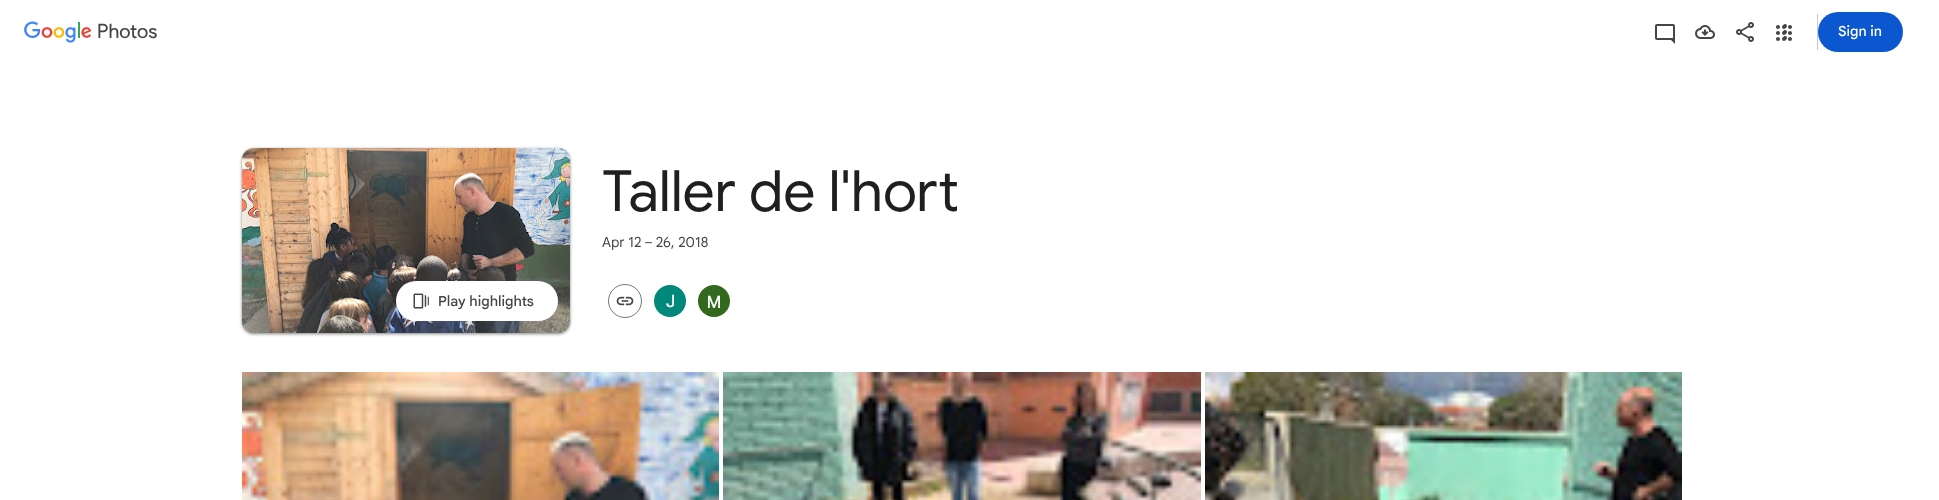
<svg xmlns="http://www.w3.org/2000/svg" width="1939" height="500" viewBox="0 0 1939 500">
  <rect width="100%" height="100%" fill="#fff"/>
  <image x="24" y="21" width="68" height="22" href="img/1.png"/>
  <image x="1655" y="24" width="20" height="20" href="img/2.png"/>
  <image x="1695" y="25" width="20" height="14" href="img/3.png"/>
  <image x="1736" y="22" width="18" height="20" href="img/4.png"/>
  <image x="1783" y="24" width="4" height="16" href="img/5.png"/>
  <path d="M1817 14h1v36H1817z" fill="#c4c7c5"/>
  <circle cx="625" cy="301" r="16.5" fill="none" stroke="#747775"/>
  <image x="616" y="296" width="18" height="10" href="img/6.png"/>
  <image x="654" y="285" width="32" height="32" href="img/7.png"/>
  <image x="698" y="285" width="32" height="32" href="img/8.png"/>
  <rect x="241" y="148" width="330" height="187" rx="13" fill="#00000026" filter="blur(1.5px)"/>
  <rect x="242" y="149" width="328" height="185" rx="12" fill="#0000004d" filter="blur(1px)"/>
  <image x="242" y="148" width="328" height="185" href="img/9.png"/>
  <rect x="396" y="281" width="162" height="40" rx="20" fill="#fff"/>
  <image x="413" y="293" width="16" height="16" href="img/10.png"/>
  <image x="242" y="372" width="477" height="128" href="img/11.png"/>
  <image x="723" y="372" width="478" height="128" href="img/12.png"/>
  <image x="1205" y="372" width="477" height="128" href="img/13.png"/>
  <image x="1776" y="25" width="16" height="16" href="img/14.png"/>
  <rect x="1818" y="12" width="85" height="40" rx="20" fill="#0b57d0"/>
  <text x="97" y="38" font-family="Product Sans" font-size="20" fill="#444746">Photos</text>
  <text x="602" y="211" font-family="Google Sans" font-size="57" fill="#1f1f1f">Taller de l'hort</text>
  <text x="602" y="247" font-family="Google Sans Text" font-size="14" fill="#444746">Apr 12 – 26, 2018</text>
  <text x="438" y="306" font-family="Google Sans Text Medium" font-size="14" font-weight="500" fill="#444746">Play highlights</text>
  <text x="1838" y="36" font-family="Google Sans Text Medium" font-size="14" font-weight="500" fill="#fff">Sign in</text>
</svg>
